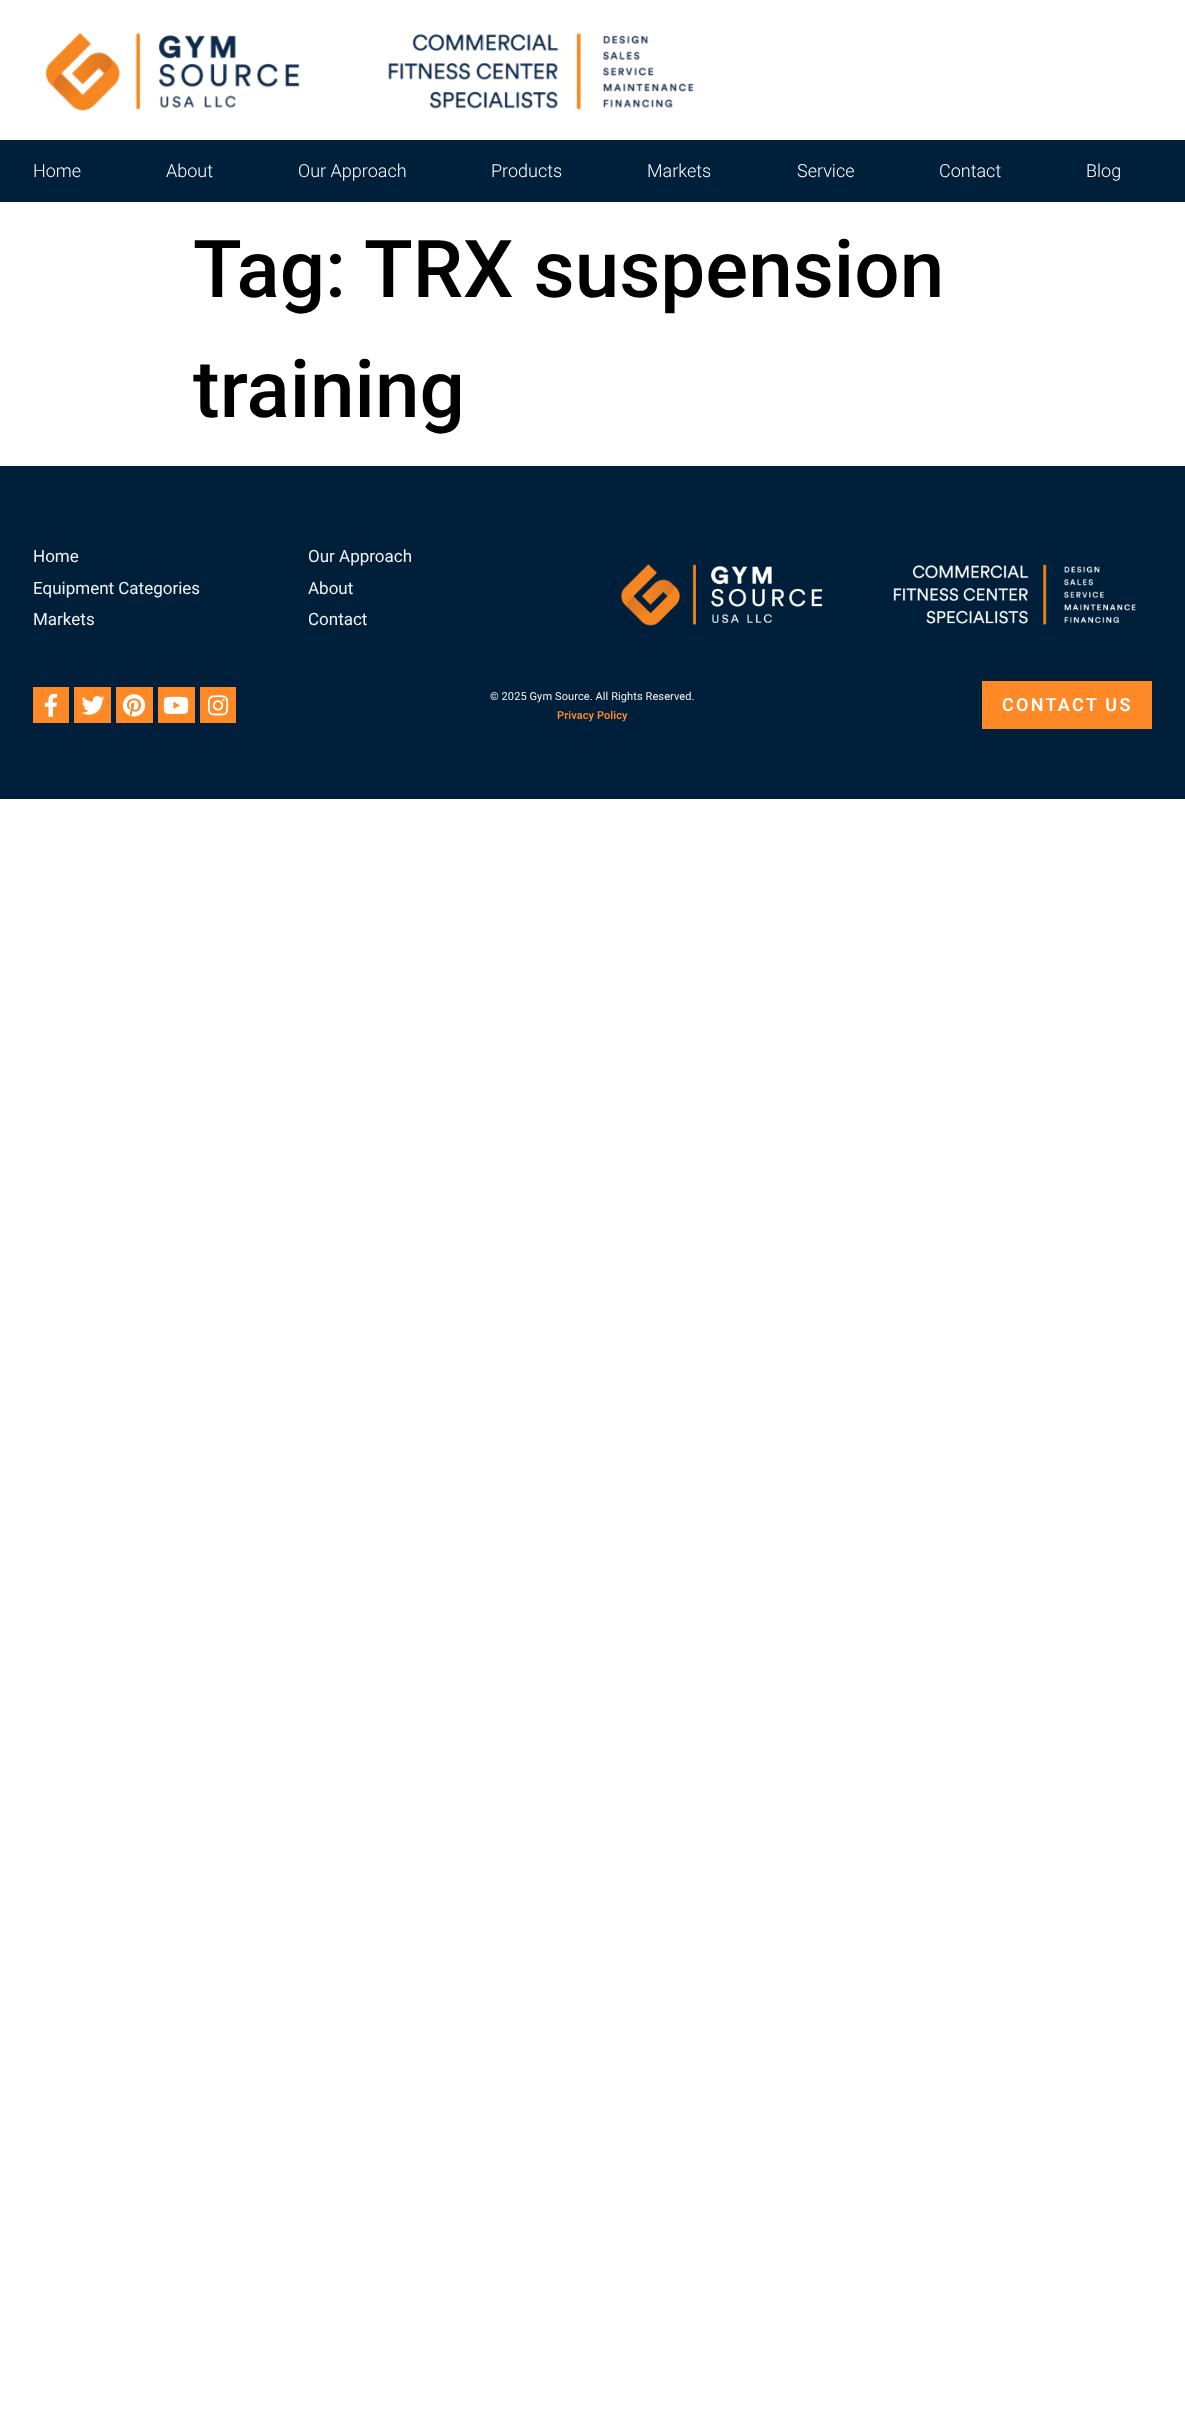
<svg xmlns="http://www.w3.org/2000/svg" width="1185" height="2410" viewBox="0 0 1185 2410">
  <rect width="100%" height="100%" fill="#fff"/>
  <image x="45" y="32" width="649" height="79" href="img/1.png"/>
  <path d="M0 140h1185v62H0z" fill="#001f3b"/>
  <path d="M0 466h1185v333H0z" fill="#001f3b"/>
  <image x="621" y="564" width="515" height="62" href="img/2.png"/>
  <path d="M33 687h36v36H33z" fill="#ff8926"/>
  <image x="44" y="693" width="14" height="24" href="img/3.png"/>
  <path d="M74 687h37v36H74z" fill="#ff8926"/>
  <image x="81" y="696" width="24" height="19" href="img/4.png"/>
  <path d="M116 687h37v36H116z" fill="#ff8926"/>
  <image x="122" y="694" width="24" height="23" href="img/5.png"/>
  <path d="M158 687h37v36H158z" fill="#ff8926"/>
  <image x="163" y="696" width="26" height="18" href="img/6.png"/>
  <path d="M200 687h36v36H200z" fill="#ff8926"/>
  <image x="207" y="695" width="22" height="21" href="img/7.png"/>
  <path d="M982 681h170v48H982z" fill="#ff8926"/>
  <g font-family="Roboto" font-size="18" font-weight="300" fill="#fff">
    <text x="33" y="177">Home</text>
    <text x="166" y="177">About</text>
    <text x="298" y="177">Our Approach</text>
    <text x="491" y="177">Products</text>
    <text x="647" y="177">Markets</text>
    <text x="797" y="177">Service</text>
    <text x="939" y="177">Contact</text>
    <text x="1086" y="177">Blog</text>
  </g>
  <g font-family="Roboto" font-size="80" font-weight="500" fill="#000">
    <text x="193" y="297">Tag:</text>
    <text x="364" y="297">TRX suspension</text>
    <text x="193" y="417">training</text>
  </g>
  <g font-family="Roboto" font-size="17" fill="#f0f0f0">
    <text x="33" y="562">Home</text>
    <text x="33" y="594">Equipment Categories</text>
    <text x="33" y="625">Markets</text>
    <text x="308" y="562">Our Approach</text>
    <text x="308" y="594">About</text>
    <text x="308" y="625">Contact</text>
  </g>
  <text x="490" y="700" font-family="Roboto" font-size="11" letter-spacing="0.1" fill="#f0f0f0">© 2025 Gym Source. All Rights Reserved.</text>
  <text x="557" y="719" font-family="Roboto" font-size="11" font-weight="600" letter-spacing="0.1" fill="#ff8926">Privacy Policy</text>
  <text x="1002" y="711" font-family="Roboto" font-size="18" font-weight="600" letter-spacing="2.25" fill="#fff">CONTACT US</text>
</svg>
